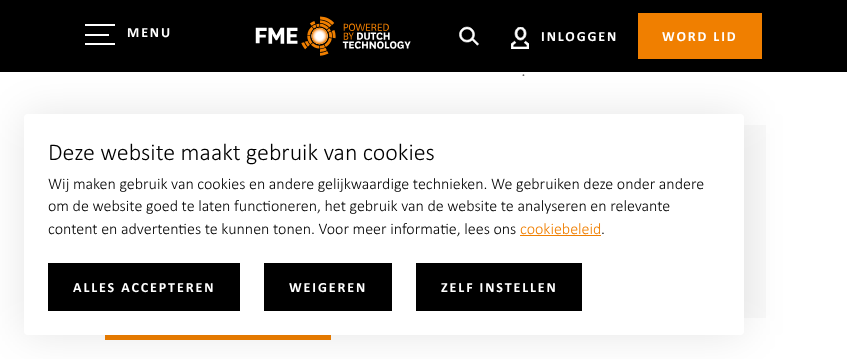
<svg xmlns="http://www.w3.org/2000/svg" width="847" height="359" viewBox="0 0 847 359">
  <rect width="100%" height="100%" fill="#fff"/>
  <path d="M0 0h847v72H0z" fill="#000"/>
  <path d="M85 24h30v2H85z" fill="#fff"/>
  <path d="M85 34h24v2H85z" fill="#fff"/>
  <path d="M85 43h30v2H85z" fill="#fff"/>
  <image x="255" y="16" width="156" height="40" href="img/1.png"/>
  <image x="459" y="26" width="20" height="20" href="img/2.png"/>
  <image x="511" y="27" width="18" height="22" href="img/3.png"/>
  <path d="M638 13h124v46H638z" fill="#f07f00"/>
  <path d="M744 125h22v193H744z" fill="#f9f9f9"/>
  <path d="M105 335h226v5H105z" fill="#f07f00"/>
  <rect x="24" y="114" width="720" height="221" rx="4" fill="#0000001a" filter="blur(20px)"/>
  <rect x="24" y="114" width="720" height="221" rx="4" fill="#fff"/>
  <path d="M520 235h81v1H520z" fill="#f07f00"/>
  <path d="M48 263h192v48H48z" fill="#000"/>
  <path d="M264 263h128v48H264z" fill="#000"/>
  <path d="M416 263h166v48H416z" fill="#000"/>
  <g font-family="Calibri" font-size="14" font-weight="bold" letter-spacing="1.9" fill="#fff">
    <text x="127" y="37">MENU</text>
    <text x="541" y="41">INLOGGEN</text>
    <text x="662" y="41">WORD LID</text>
  </g>
  <text x="521" y="76" font-family="Calibri" font-size="20" font-weight="300" fill="#696969">.</text>
  <text x="48" y="160" font-family="Calibri" font-size="24" font-weight="300" fill="#000">Deze website maakt gebruik van cookies</text>
  <g font-family="Calibri" font-size="16" font-weight="300" fill="#000">
    <text x="48" y="189">Wij maken gebruik van cookies en andere gelijkwaardige technieken. We gebruiken deze onder andere</text>
    <text x="48" y="211">om de website goed te laten functioneren, het gebruik van de website te analyseren en relevante</text>
    <text x="48" y="234">content en advertenties te kunnen tonen. Voor meer informatie, lees ons</text>
  </g>
  <text x="520" y="234" font-family="Calibri" font-size="16" font-weight="300" fill="#f07f00">cookiebeleid</text>
  <text x="601" y="234" font-family="Calibri" font-size="16" font-weight="300" fill="#000">.</text>
  <g font-family="Calibri" font-size="14" font-weight="bold" letter-spacing="1.9" fill="#fff">
    <text x="73" y="292">ALLES ACCEPTEREN</text>
    <text x="289" y="292">WEIGEREN</text>
    <text x="441" y="292">ZELF INSTELLEN</text>
  </g>
</svg>
